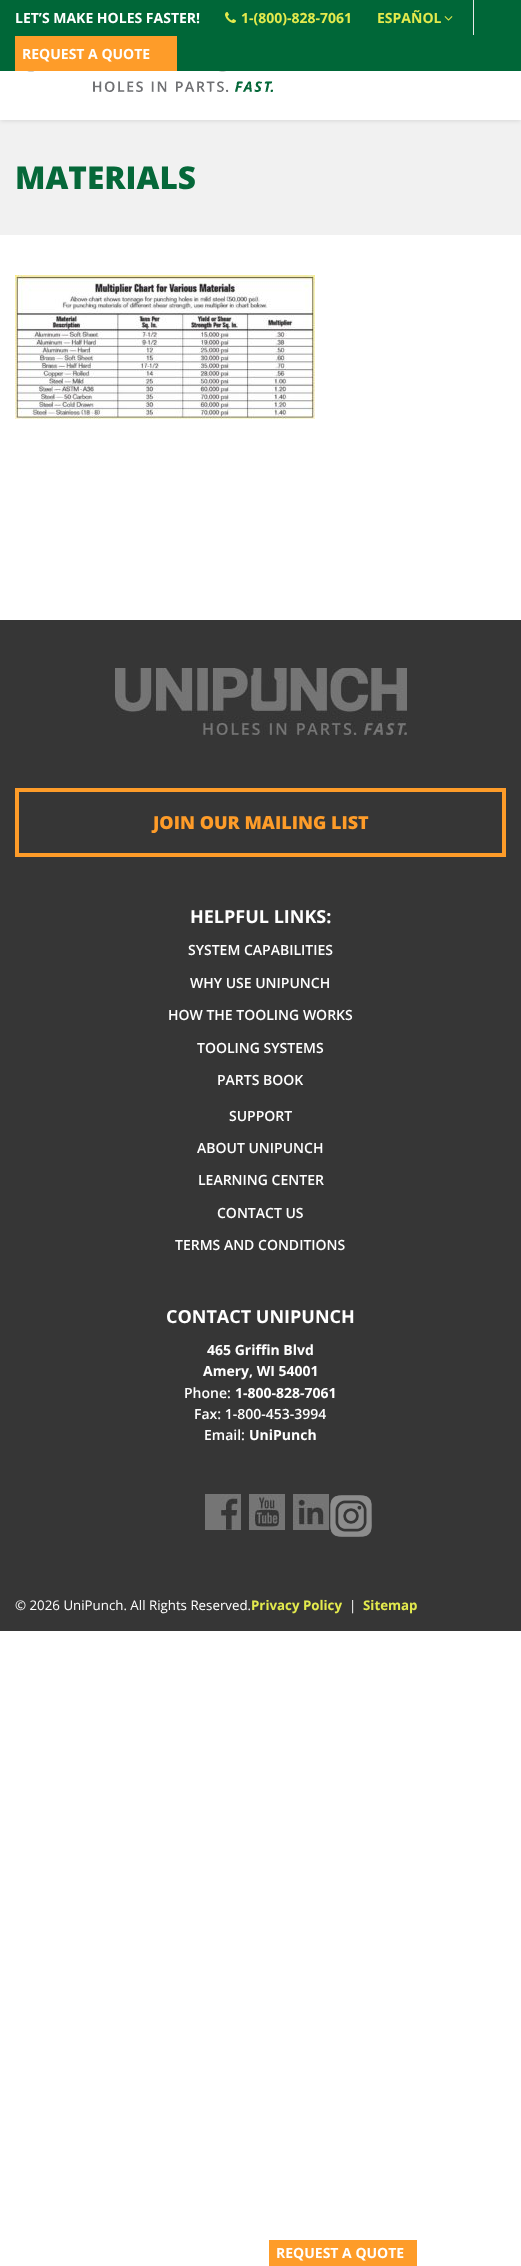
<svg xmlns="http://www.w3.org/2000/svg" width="521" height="2266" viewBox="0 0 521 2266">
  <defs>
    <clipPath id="clip1"><path d="M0 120h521v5H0z"/></clipPath>
  </defs>
  <rect width="100%" height="100%" fill="#fff"/>
  <path d="M0 0h521v71H0z" fill="#006738"/>
  <image x="225" y="12" width="11" height="11" href="img/1.png"/>
  <path d="M473 0h1v35H473z" fill="#e8e8e8"/>
  <image x="444" y="16" width="9" height="5" href="img/2.png"/>
  <path d="M15 36h162v35H15z" fill="#fe9c29"/>
  <image x="27" y="71" width="246" height="21" href="img/3.png"/>
  <path d="M0 120h521v115H0z" fill="#f1f1f1"/>
  <g clip-path="url(#clip1)">
    <rect y="116" width="521" height="5" rx="2.5" fill="#0000001a" filter="blur(2px)"/>
  </g>
  <image x="15" y="275" width="300" height="144" href="img/4.png"/>
  <path d="M0 620h521v1011H0z" fill="#363636"/>
  <image x="115" y="668" width="292" height="67" href="img/5.png"/>
  <path d="M17 790h487v65H17z" fill="none" stroke="#fe9c29" stroke-width="4"/>
  <image x="205" y="1494" width="36" height="36" href="img/6.png"/>
  <image x="249" y="1494" width="36" height="36" href="img/7.png"/>
  <image x="293" y="1494" width="36" height="36" href="img/8.png"/>
  <image x="330" y="1495" width="42" height="42" href="img/9.png"/>
  <path d="M269 2240h148v26H269z" fill="#fe9c29"/>
  <text x="15" y="23" font-family="Open Sans" font-size="14" font-weight="bold" fill="#fff">LET’S MAKE HOLES FASTER!</text>
  <g font-family="Open Sans" font-size="14" font-weight="bold" fill="#e3ea4d">
    <text x="241" y="23">1-(800)-828-7061</text>
    <text x="377" y="23">ESPAÑOL</text>
  </g>
  <text x="22" y="59" font-family="Open Sans" font-size="14" font-weight="bold" fill="#fff">REQUEST A QUOTE</text>
  <text x="15" y="189" font-family="Open Sans" font-size="31.5" font-weight="800" fill="#056839">MATERIALS</text>
  <text x="153" y="829" font-family="Open Sans" font-size="18" font-weight="800" fill="#fe9c29">JOIN OUR MAILING LIST</text>
  <text x="190" y="923" font-family="Open Sans" font-size="18" font-weight="bold" fill="#fff">HELPFUL LINKS:</text>
  <g font-family="Open Sans" font-size="14" font-weight="600" fill="#fff">
    <text x="188" y="955">SYSTEM CAPABILITIES</text>
    <text x="190" y="988">WHY USE UNIPUNCH</text>
    <text x="168" y="1020">HOW THE TOOLING WORKS</text>
    <text x="197" y="1053">TOOLING SYSTEMS</text>
    <text x="217" y="1085">PARTS BOOK</text>
    <text x="229" y="1121">SUPPORT</text>
    <text x="197" y="1153">ABOUT UNIPUNCH</text>
    <text x="198" y="1185">LEARNING CENTER</text>
    <text x="217" y="1218">CONTACT US</text>
    <text x="175" y="1250">TERMS AND CONDITIONS</text>
  </g>
  <text x="166" y="1323" font-family="Open Sans" font-size="18" font-weight="bold" fill="#fff">CONTACT UNIPUNCH</text>
  <g font-family="Open Sans" font-size="14" font-weight="bold" fill="#fff">
    <text x="207" y="1355">465 Griffin Blvd</text>
    <text x="203" y="1376">Amery, WI 54001</text>
  </g>
  <text x="184" y="1398" font-family="Open Sans" font-size="14" font-weight="600" fill="#fff">Phone:</text>
  <text x="235" y="1398" font-family="Open Sans" font-size="14" font-weight="bold" fill="#fff">1-800-828-7061</text>
  <g font-family="Open Sans" font-size="14" font-weight="600" fill="#fff">
    <text x="194" y="1419">Fax: 1-800-453-3994</text>
    <text x="204" y="1440">Email:</text>
  </g>
  <text x="249" y="1440" font-family="Open Sans" font-size="14" font-weight="bold" fill="#fff">UniPunch</text>
  <text x="15" y="1610" font-family="Open Sans" font-size="13.3" fill="#fff">© 2026 UniPunch. All Rights Reserved.</text>
  <text x="251" y="1610" font-family="Open Sans" font-size="13.3" font-weight="bold" fill="#e3ea4d">Privacy Policy</text>
  <text x="349" y="1610" font-family="Open Sans" font-size="13.3" fill="#fff">|</text>
  <text x="363" y="1610" font-family="Open Sans" font-size="13.3" font-weight="bold" fill="#e3ea4d">Sitemap</text>
  <text x="276" y="2258" font-family="Open Sans" font-size="14" font-weight="bold" fill="#fff">REQUEST A QUOTE</text>
</svg>
